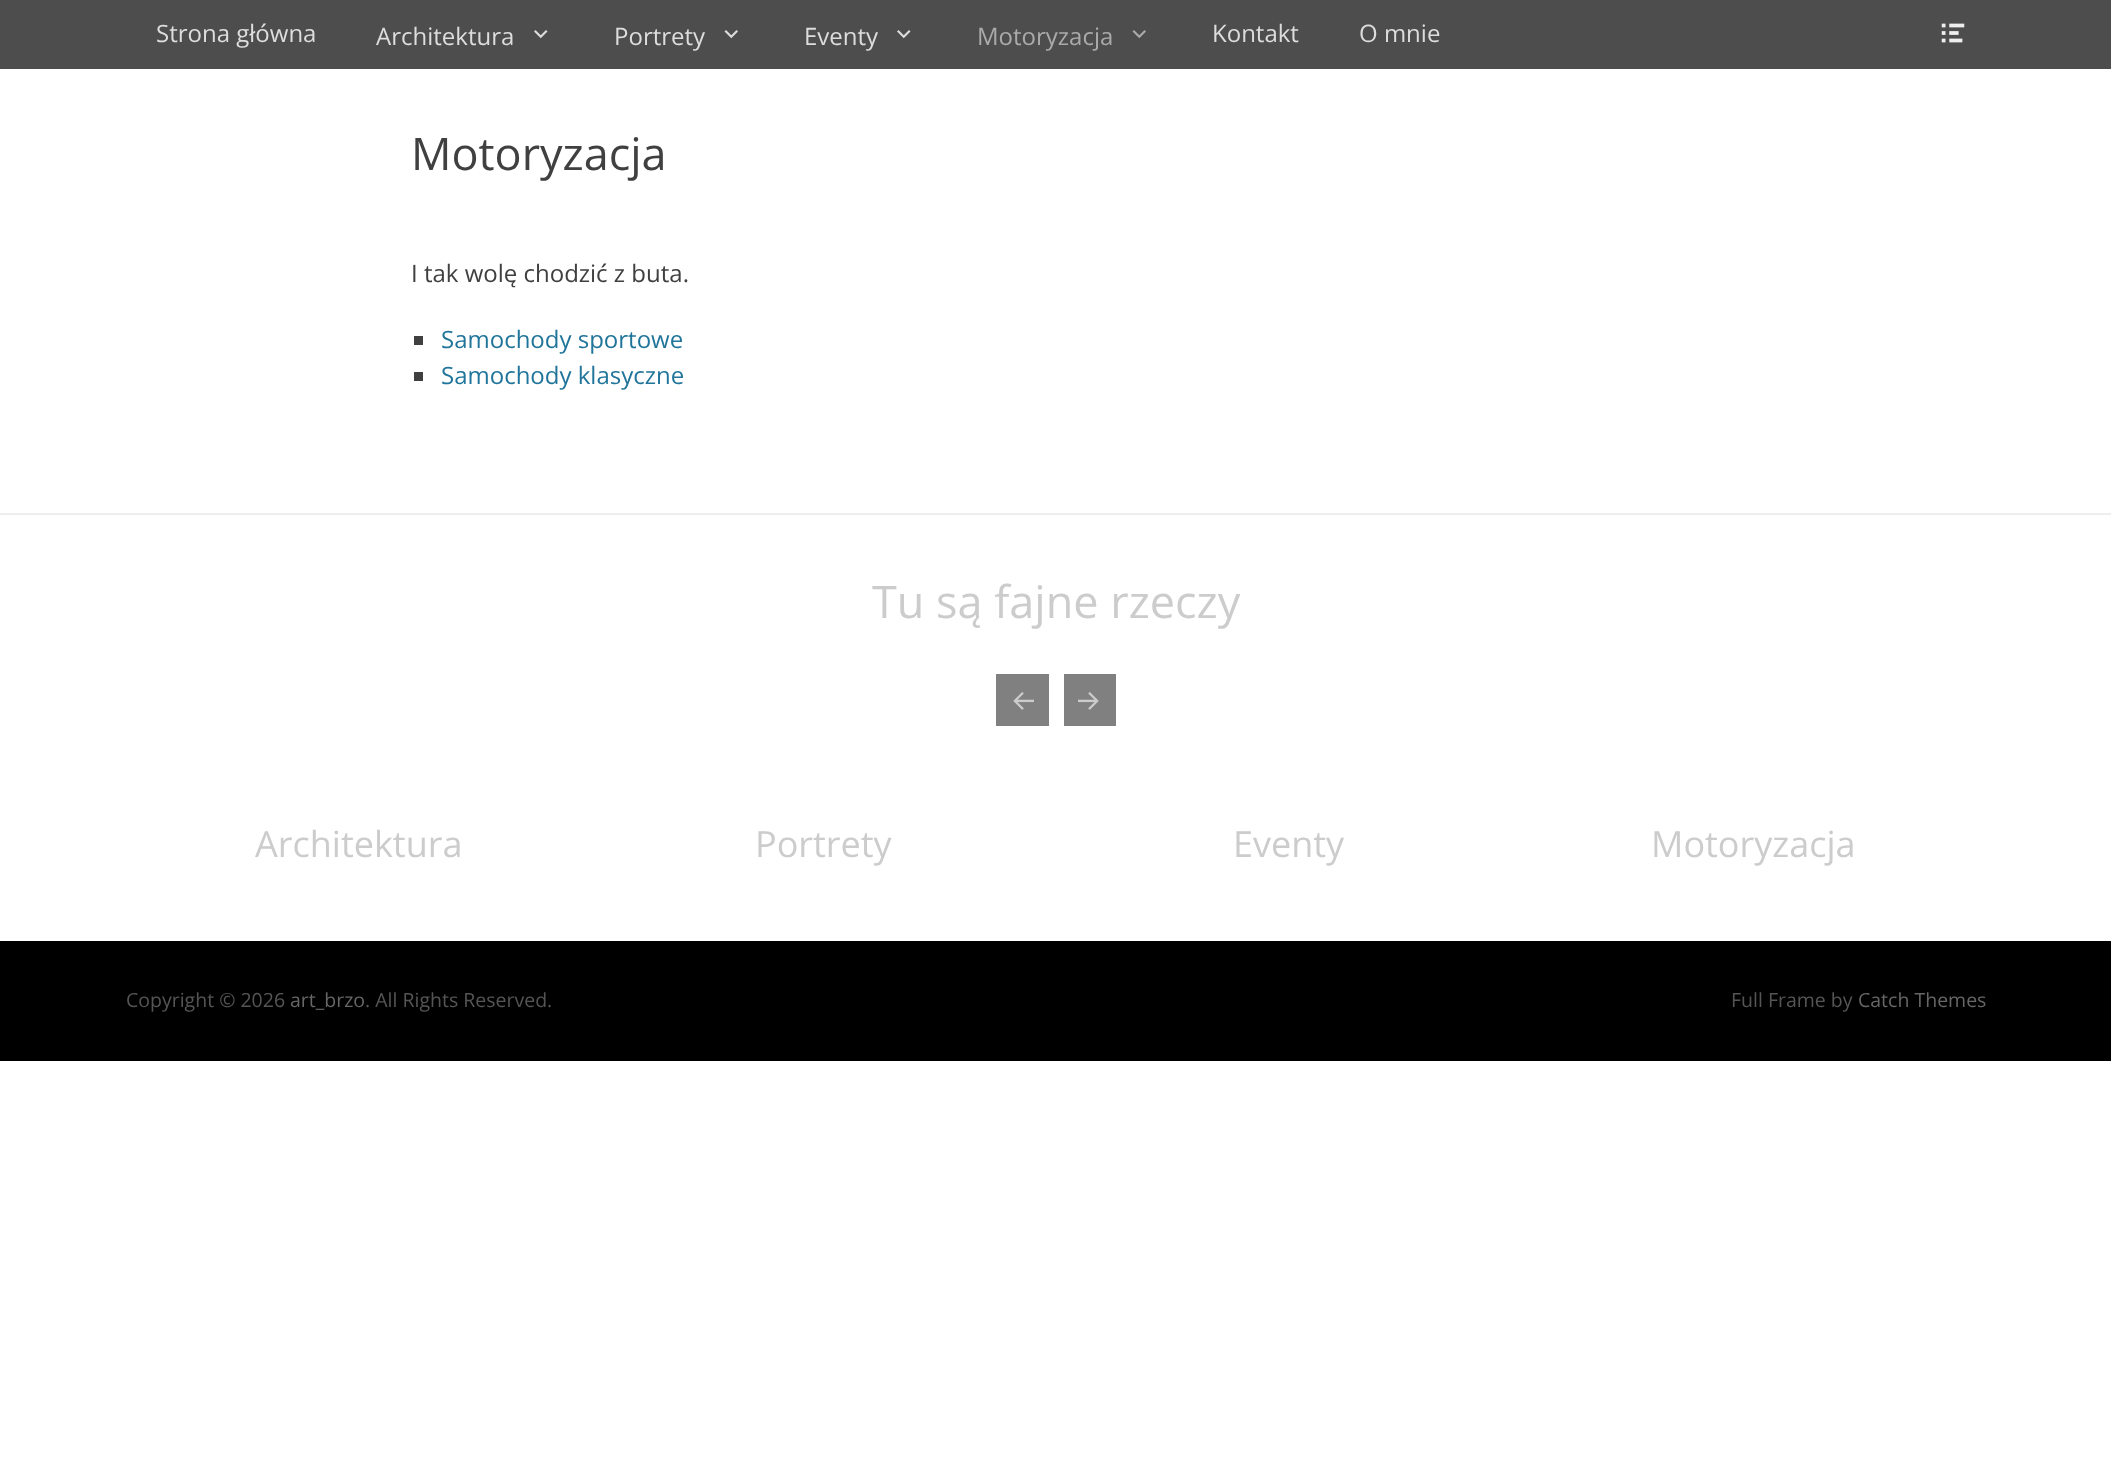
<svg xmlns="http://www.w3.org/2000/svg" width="2111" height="1481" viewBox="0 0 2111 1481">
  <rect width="100%" height="100%" fill="#fff"/>
  <path d="M0 0h2111v69H0z" fill="#4d4d4d"/>
  <image x="534" y="30" width="14" height="9" href="img/1.png"/>
  <image x="724" y="30" width="14" height="9" href="img/2.png"/>
  <image x="897" y="30" width="14" height="9" href="img/1.png"/>
  <image x="1132" y="30" width="14" height="9" href="img/3.png"/>
  <image x="1941" y="23" width="24" height="20" href="img/4.png"/>
  <path d="M414 336h9v9H414z" fill="#404040"/>
  <path d="M414 372h9v9H414z" fill="#404040"/>
  <path d="M0 513h2111v2H0z" fill="#eee"/>
  <path d="M996 674h53v52H996z" fill="#808080"/>
  <image x="1013" y="692" width="21" height="18" href="img/5.png"/>
  <path d="M1064 674h52v52H1064z" fill="#808080"/>
  <image x="1078" y="692" width="21" height="18" href="img/6.png"/>
  <path d="M0 941h2111v120H0z" fill="#000"/>
  <g font-family="Open Sans" font-size="24" fill="#ddd">
    <text x="156" y="42">Strona główna</text>
    <text x="376" y="45">Architektura</text>
    <text x="614" y="45">Portrety</text>
    <text x="804" y="45">Eventy</text>
  </g>
  <text x="977" y="45" font-family="Open Sans" font-size="24" fill="#aaa">Motoryzacja</text>
  <g font-family="Open Sans" font-size="24" fill="#ddd">
    <text x="1212" y="42">Kontakt</text>
    <text x="1359" y="42">O mnie</text>
  </g>
  <text x="411" y="170" font-family="Open Sans" font-size="45" fill="#404040">Motoryzacja</text>
  <text x="411" y="282" font-family="Open Sans" font-size="24" fill="#404040">I tak wolę chodzić z buta.</text>
  <g font-family="Open Sans" font-size="24" fill="#21759b">
    <text x="441" y="348">Samochody sportowe</text>
    <text x="441" y="384">Samochody klasyczne</text>
  </g>
  <text x="872" y="618" font-family="Open Sans" font-size="45" fill="#ccc">Tu są fajne rzeczy</text>
  <g font-family="Open Sans" font-size="36" fill="#ccc">
    <text x="255" y="857">Architektura</text>
    <text x="755" y="857">Portrety</text>
    <text x="1233" y="857">Eventy</text>
    <text x="1651" y="857">Motoryzacja</text>
  </g>
  <text x="126" y="1007" font-family="Open Sans" font-size="19.5" fill="#555">Copyright © 2026</text>
  <text x="290" y="1007" font-family="Open Sans" font-size="19.5" fill="#666">art_brzo</text>
  <g font-family="Open Sans" font-size="19.5" fill="#555">
    <text x="365" y="1007">. All Rights Reserved.</text>
    <text x="1731" y="1007">Full Frame by</text>
  </g>
  <text x="1858" y="1007" font-family="Open Sans" font-size="19.5" fill="#666">Catch Themes</text>
</svg>
